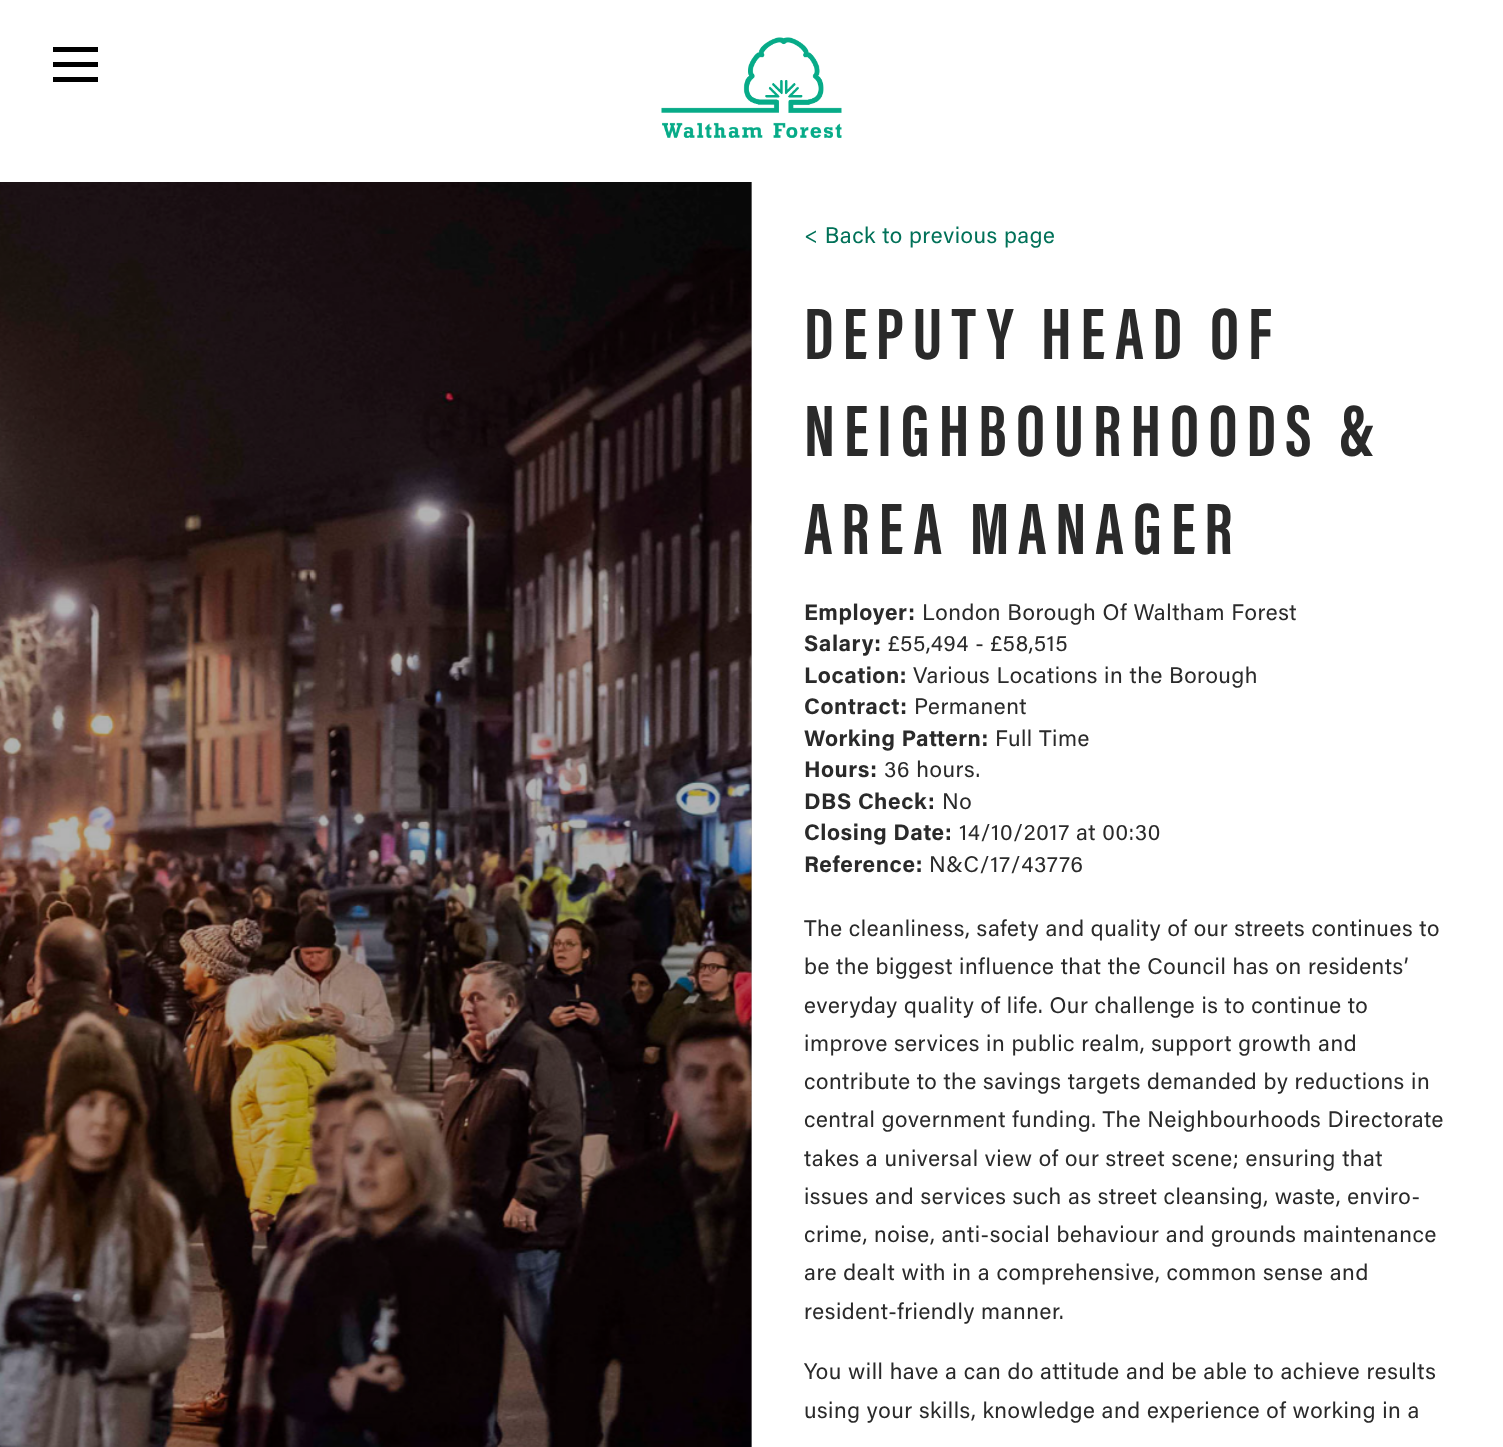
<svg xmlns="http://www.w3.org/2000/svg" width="1503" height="1447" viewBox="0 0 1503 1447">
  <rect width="100%" height="100%" fill="#fff"/>
  <path d="M751 182h1v1265H751z" fill="#b3b3b3"/>
  <path d="M53 62h45v5H53z" fill="#000"/>
  <path d="M53 47h45v5H53z" fill="#000"/>
  <path d="M53 77h45v5H53z" fill="#000"/>
  <image x="661" y="37" width="181" height="101" href="img/1.png"/>
  <image x="0" y="182" width="752" height="1265" href="img/2.png"/>
  <text x="804" y="243" font-family="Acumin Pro" font-size="22.5" letter-spacing="0.55" fill="#007158">&lt; Back to previous page</text>
  <g font-family="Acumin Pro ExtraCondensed" font-size="75" font-weight="bold" letter-spacing="9" fill="#2a2a2a">
    <text x="804" y="359">DEPUTY HEAD OF</text>
    <text x="804" y="456">NEIGHBOURHOODS &amp;</text>
    <text x="804" y="554">AREA MANAGER</text>
  </g>
  <text x="804" y="620" font-family="Acumin Pro" font-size="22.5" font-weight="bold" letter-spacing="0.55" fill="#2a2a2a">Employer:</text>
  <text x="922" y="620" font-family="Acumin Pro" font-size="22.5" letter-spacing="0.55" fill="#2a2a2a">London Borough Of Waltham Forest</text>
  <text x="804" y="651" font-family="Acumin Pro" font-size="22.5" font-weight="bold" letter-spacing="0.55" fill="#2a2a2a">Salary:</text>
  <text x="888" y="651" font-family="Acumin Pro" font-size="22.5" letter-spacing="0.55" fill="#2a2a2a">£55,494 - £58,515</text>
  <text x="804" y="683" font-family="Acumin Pro" font-size="22.5" font-weight="bold" letter-spacing="0.55" fill="#2a2a2a">Location:</text>
  <text x="913" y="683" font-family="Acumin Pro" font-size="22.5" letter-spacing="0.55" fill="#2a2a2a">Various Locations in the Borough</text>
  <text x="804" y="714" font-family="Acumin Pro" font-size="22.5" font-weight="bold" letter-spacing="0.55" fill="#2a2a2a">Contract:</text>
  <text x="914" y="714" font-family="Acumin Pro" font-size="22.5" letter-spacing="0.55" fill="#2a2a2a">Permanent</text>
  <text x="804" y="746" font-family="Acumin Pro" font-size="22.5" font-weight="bold" letter-spacing="0.55" fill="#2a2a2a">Working Pattern:</text>
  <text x="995" y="746" font-family="Acumin Pro" font-size="22.5" letter-spacing="0.55" fill="#2a2a2a">Full Time</text>
  <text x="804" y="777" font-family="Acumin Pro" font-size="22.5" font-weight="bold" letter-spacing="0.55" fill="#2a2a2a">Hours:</text>
  <text x="884" y="777" font-family="Acumin Pro" font-size="22.5" letter-spacing="0.55" fill="#2a2a2a">36 hours.</text>
  <text x="804" y="809" font-family="Acumin Pro" font-size="22.5" font-weight="bold" letter-spacing="0.55" fill="#2a2a2a">DBS Check:</text>
  <text x="942" y="809" font-family="Acumin Pro" font-size="22.5" letter-spacing="0.55" fill="#2a2a2a">No</text>
  <text x="804" y="840" font-family="Acumin Pro" font-size="22.5" font-weight="bold" letter-spacing="0.55" fill="#2a2a2a">Closing Date:</text>
  <text x="959" y="840" font-family="Acumin Pro" font-size="22.5" letter-spacing="0.55" fill="#2a2a2a">14/10/2017 at 00:30</text>
  <text x="804" y="872" font-family="Acumin Pro" font-size="22.5" font-weight="bold" letter-spacing="0.55" fill="#2a2a2a">Reference:</text>
  <g font-family="Acumin Pro" font-size="22.5" letter-spacing="0.55" fill="#2a2a2a">
    <text x="929" y="872">N&amp;C/17/43776</text>
    <text x="804" y="936">The cleanliness, safety and quality of our streets continues to</text>
    <text x="804" y="974">be the biggest influence that the Council has on residents’</text>
    <text x="804" y="1013">everyday quality of life. Our challenge is to continue to</text>
    <text x="804" y="1051">improve services in public realm, support growth and</text>
    <text x="804" y="1089">contribute to the savings targets demanded by reductions in</text>
    <text x="804" y="1127">central government funding. The Neighbourhoods Directorate</text>
    <text x="804" y="1166">takes a universal view of our street scene; ensuring that</text>
    <text x="804" y="1204">issues and services such as street cleansing, waste, enviro-</text>
    <text x="804" y="1242">crime, noise, anti-social behaviour and grounds maintenance</text>
    <text x="804" y="1280">are dealt with in a comprehensive, common sense and</text>
    <text x="804" y="1319">resident-friendly manner.</text>
    <text x="804" y="1379">You will have a can do attitude and be able to achieve results</text>
    <text x="804" y="1418">using your skills, knowledge and experience of working in a</text>
  </g>
</svg>
